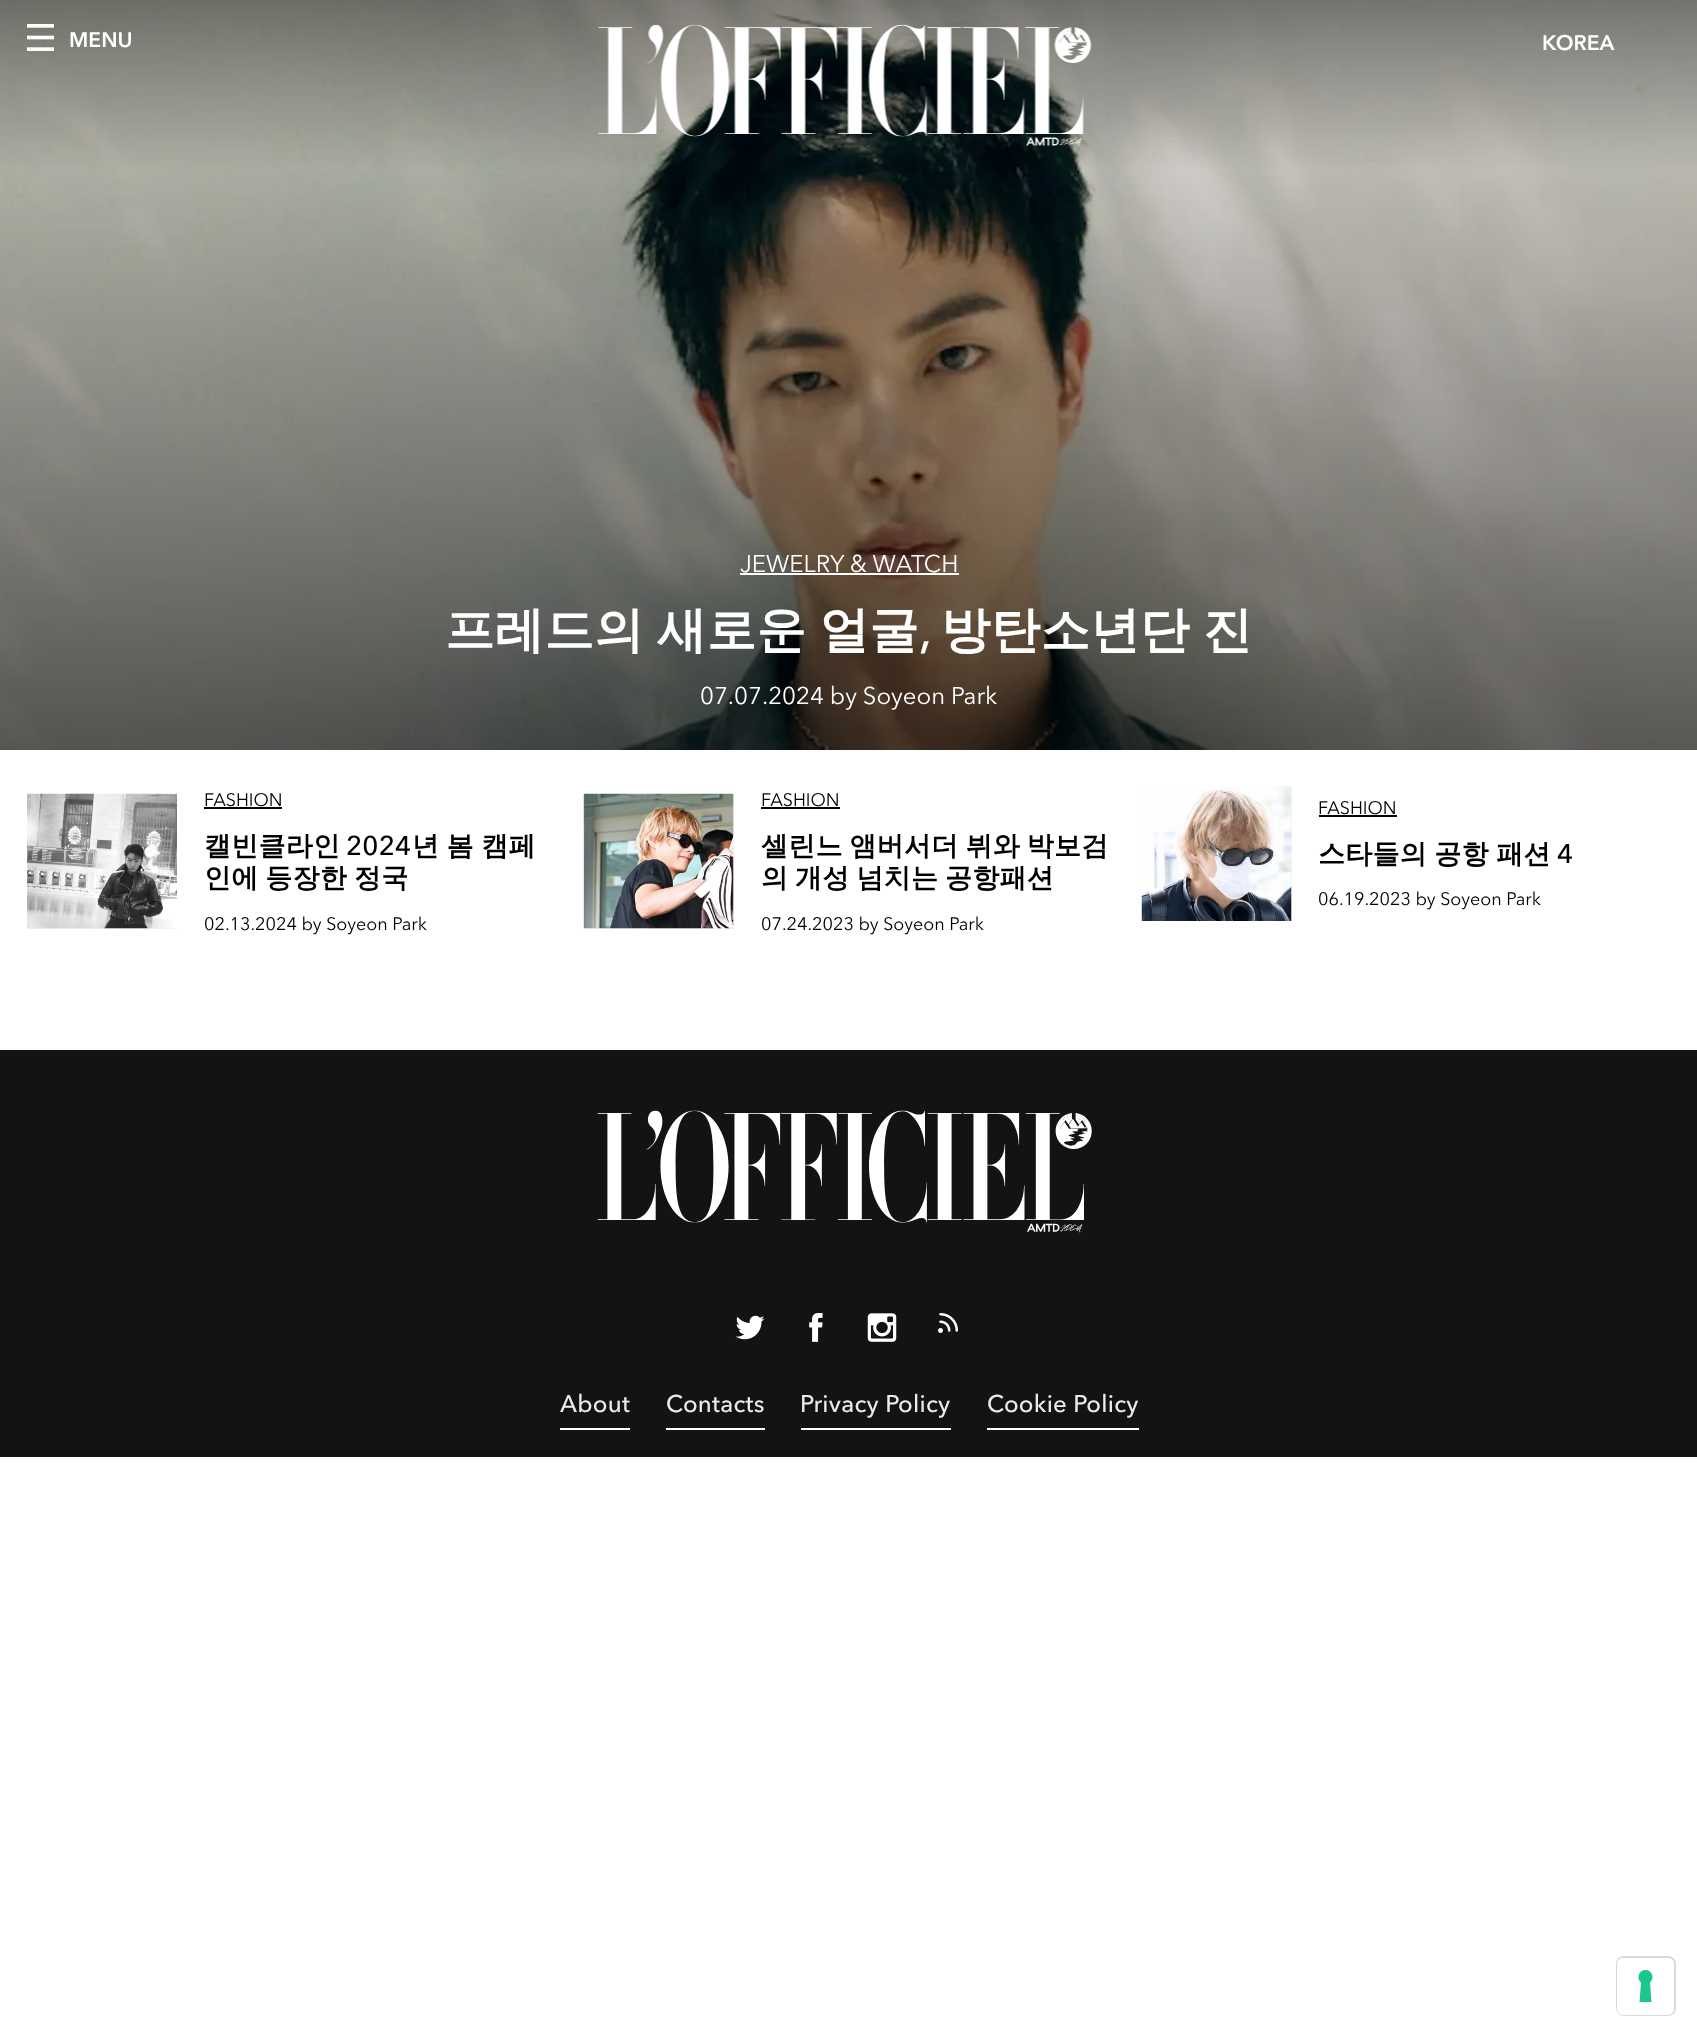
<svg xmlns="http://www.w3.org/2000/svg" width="1697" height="2038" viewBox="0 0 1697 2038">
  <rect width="100%" height="100%" fill="#fff"/>
  <image x="0" y="0" width="1697" height="750" href="img/3.png"/>
  <image x="27" y="24" width="27" height="27" href="img/1.png"/>
  <image x="598" y="24" width="494" height="123" href="img/2.png"/>
  <path d="M740 573h219v2H740z" fill="#fff"/>
  <path d="M27 928h150v1H27z" fill="#f1f1f1"/>
  <image x="27" y="793" width="150" height="136" href="img/4.png"/>
  <path d="M204 807h78v2H204z" fill="#000"/>
  <path d="M584 794h150v135H584z" fill="#f1f1f1"/>
  <image x="583" y="793" width="151" height="136" href="img/5.png"/>
  <path d="M761 807h79v2H761z" fill="#000"/>
  <path d="M1291 786h1v135H1291z" fill="#f1f1f1"/>
  <image x="1141" y="786" width="151" height="135" href="img/6.png"/>
  <path d="M1319 815h78v2H1319z" fill="#000"/>
  <path d="M0 1050h1697v407H0z" fill="#131312"/>
  <image x="597" y="1110" width="495" height="123" href="img/7.png"/>
  <image x="735" y="1315" width="30" height="25" href="img/8.png"/>
  <image x="809" y="1313" width="14" height="29" href="img/9.png"/>
  <image x="867" y="1313" width="30" height="29" href="img/10.png"/>
  <image x="938" y="1313" width="20" height="20" href="img/11.png"/>
  <path d="M560 1428h70v2H560z" fill="#fff"/>
  <path d="M666 1428h99v2H666z" fill="#fff"/>
  <path d="M801 1428h150v2H801z" fill="#fff"/>
  <path d="M987 1428h152v2H987z" fill="#fff"/>
  <rect x="1617" y="1957" width="58" height="58" rx="7" fill="none" stroke="#d9d9d9" stroke-width="2"/>
  <rect x="1617" y="1958" width="57" height="57" rx="6" fill="#fff"/>
  <path d="M1645.5 1970C1652 1970 1655 1978 1650 1982.5L1651.5 2002H1639.5L1641 1982.5C1636 1978 1639 1970 1645.5 1970Z" fill="#1cc691" fill-rule="evenodd"/>
  <g font-family="Avenir Next" font-size="21" font-weight="bold" fill="#fff">
    <text x="69" y="47">MENU</text>
    <text x="1542" y="50">KOREA</text>
  </g>
  <text x="740" y="572" font-family="Avenir Next" font-size="24" fill="#fff">JEWELRY &amp; WATCH</text>
  <text x="445" y="647" word-spacing="-2" font-family="WenQuanYi Zen Hei" font-size="49.5" font-weight="bold" letter-spacing="0.25" fill="#fff">프레드의 새로운 얼굴</text>
  <text x="919" y="647" font-family="Avenir Next" font-size="49.5" font-weight="500" letter-spacing="0.25" fill="#fff">,</text>
  <text x="941" y="647" word-spacing="-2" font-family="WenQuanYi Zen Hei" font-size="49.5" font-weight="bold" letter-spacing="0.25" fill="#fff">방탄소년단 진</text>
  <text x="700" y="704" font-family="Avenir Next" font-size="24" fill="#fff">07.07.2024 by Soyeon Park</text>
  <text x="204" y="806" font-family="Avenir Next" font-size="18" fill="#000">FASHION</text>
  <text x="204" y="855" font-family="WenQuanYi Zen Hei" font-size="27" font-weight="bold" letter-spacing="0.25" fill="#000">캘빈클라인</text>
  <text x="346" y="855" font-family="Avenir Next" font-size="27" font-weight="500" letter-spacing="0.25" fill="#000">2024</text>
  <g font-family="WenQuanYi Zen Hei" font-size="27" font-weight="bold" letter-spacing="0.25" fill="#000">
    <text x="412" y="855" word-spacing="-1">년 봄 캠페</text>
    <text x="204" y="887" word-spacing="-1.5">인에 등장한 정국</text>
  </g>
  <g font-family="Avenir Next" font-size="18" fill="#000">
    <text x="204" y="930">02.13.2024 by Soyeon Park</text>
    <text x="761" y="806">FASHION</text>
  </g>
  <g font-family="WenQuanYi Zen Hei" font-size="27" font-weight="bold" letter-spacing="0.25" fill="#000">
    <text x="761" y="855" word-spacing="-1.5">셀린느 앰버서더 뷔와 박보검</text>
    <text x="761" y="887" word-spacing="-1.5">의 개성 넘치는 공항패션</text>
  </g>
  <g font-family="Avenir Next" font-size="18" fill="#000">
    <text x="761" y="930">07.24.2023 by Soyeon Park</text>
    <text x="1318" y="814">FASHION</text>
  </g>
  <text x="1318" y="863" word-spacing="-1" font-family="WenQuanYi Zen Hei" font-size="27" font-weight="bold" letter-spacing="0.25" fill="#000">스타들의 공항 패션</text>
  <text x="1557" y="863" font-family="Avenir Next" font-size="27" font-weight="500" letter-spacing="0.25" fill="#000">4</text>
  <text x="1318" y="905" font-family="Avenir Next" font-size="18" fill="#000">06.19.2023 by Soyeon Park</text>
  <g font-family="Avenir Next" font-size="24" font-weight="500" letter-spacing="0.25" fill="#ebebeb">
    <text x="560" y="1412">About</text>
    <text x="666" y="1412">Contacts</text>
    <text x="800" y="1412">Privacy Policy</text>
    <text x="987" y="1412">Cookie Policy</text>
  </g>
</svg>
